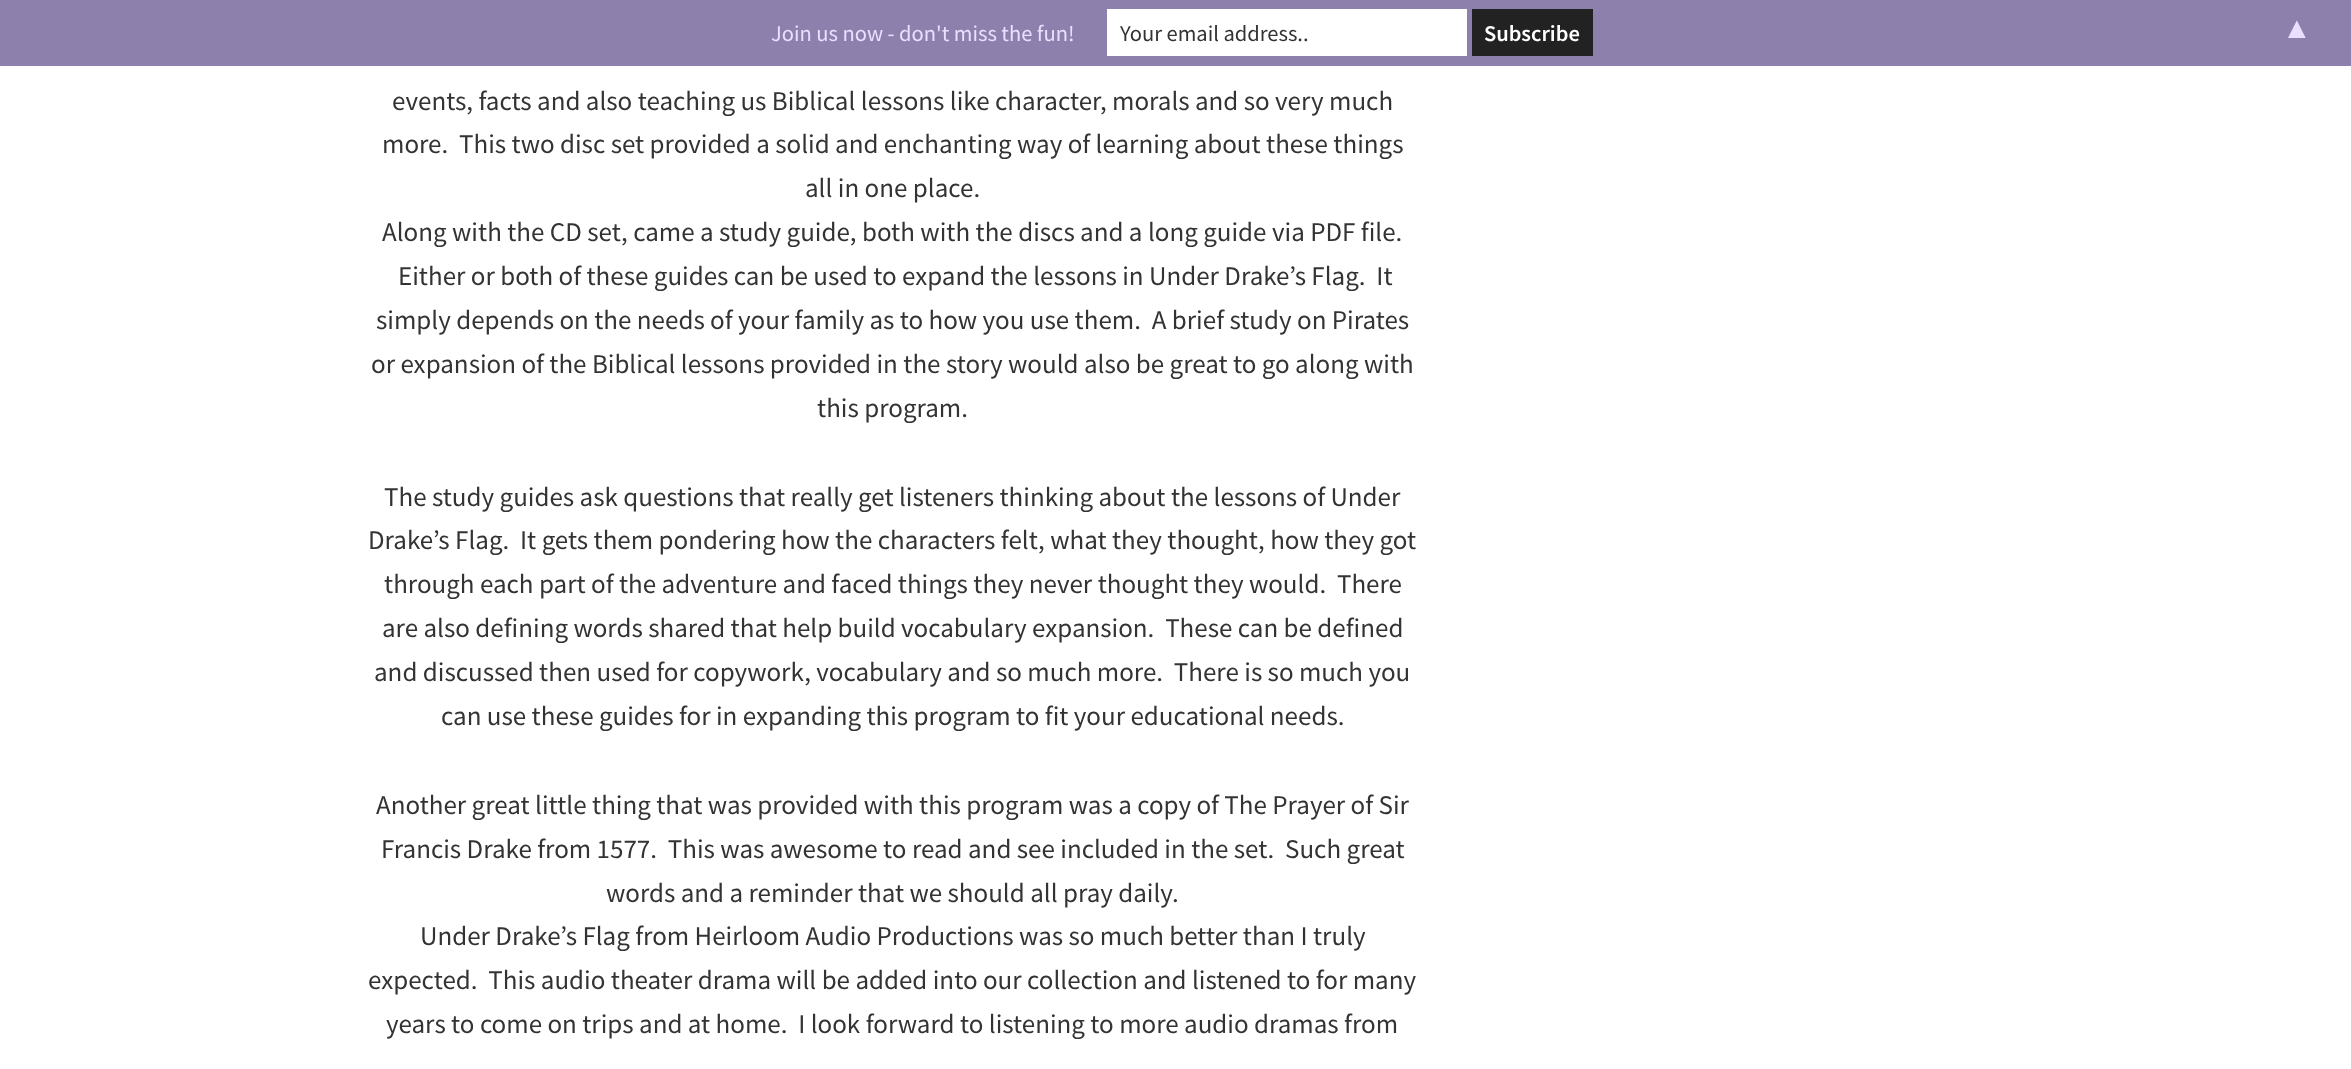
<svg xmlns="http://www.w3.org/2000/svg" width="2351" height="1069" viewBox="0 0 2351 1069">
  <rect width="100%" height="100%" fill="#fff"/>
  <path d="M0 0h2351v66H0z" fill="#8d80ad"/>
  <path d="M1107 9h360v47H1107z" fill="#fff"/>
  <path d="M1472 9h121v47H1472z" fill="#222"/>
  <text x="771" y="41" font-family="Source Sans Pro" font-size="22.5" fill="#eadfff">Join us now - don't miss the fun!</text>
  <text x="1120" y="41" font-family="Source Sans Pro" font-size="22.5" fill="#333">Your email address..</text>
  <text x="1484" y="41" font-family="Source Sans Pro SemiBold" font-size="22.5" font-weight="600" fill="#fff">Subscribe</text>
  <text x="2282" y="38" font-family="Liberation Sans" font-size="30" fill="#eadfff">▲</text>
  <g font-family="Source Sans Pro" font-size="27" fill="#333">
    <text x="392" y="110">events, facts and also teaching us Biblical lessons like character, morals and so very much</text>
    <text x="382" y="153" xml:space="preserve">more.  This two disc set provided a solid and enchanting way of learning about these things</text>
    <text x="805" y="197">all in one place.</text>
    <text x="382" y="241">Along with the CD set, came a study guide, both with the discs and a long guide via PDF file.</text>
    <text x="398" y="285" xml:space="preserve">Either or both of these guides can be used to expand the lessons in Under Drake’s Flag.  It</text>
    <text x="376" y="329" xml:space="preserve">simply depends on the needs of your family as to how you use them.  A brief study on Pirates</text>
    <text x="371" y="373">or expansion of the Biblical lessons provided in the story would also be great to go along with</text>
    <text x="817" y="417">this program.</text>
    <text x="384" y="506">The study guides ask questions that really get listeners thinking about the lessons of Under</text>
    <text x="368" y="549" xml:space="preserve">Drake’s Flag.  It gets them pondering how the characters felt, what they thought, how they got</text>
    <text x="384" y="593" xml:space="preserve">through each part of the adventure and faced things they never thought they would.  There</text>
    <text x="382" y="637" xml:space="preserve">are also defining words shared that help build vocabulary expansion.  These can be defined</text>
    <text x="374" y="681" xml:space="preserve">and discussed then used for copywork, vocabulary and so much more.  There is so much you</text>
    <text x="441" y="725">can use these guides for in expanding this program to fit your educational needs.</text>
    <text x="376" y="814">Another great little thing that was provided with this program was a copy of The Prayer of Sir</text>
    <text x="381" y="858" xml:space="preserve">Francis Drake from 1577.  This was awesome to read and see included in the set.  Such great</text>
    <text x="606" y="902">words and a reminder that we should all pray daily.</text>
    <text x="420" y="945">Under Drake’s Flag from Heirloom Audio Productions was so much better than I truly</text>
    <text x="368" y="989" xml:space="preserve">expected.  This audio theater drama will be added into our collection and listened to for many</text>
    <text x="386" y="1033" xml:space="preserve">years to come on trips and at home.  I look forward to listening to more audio dramas from</text>
  </g>
</svg>
